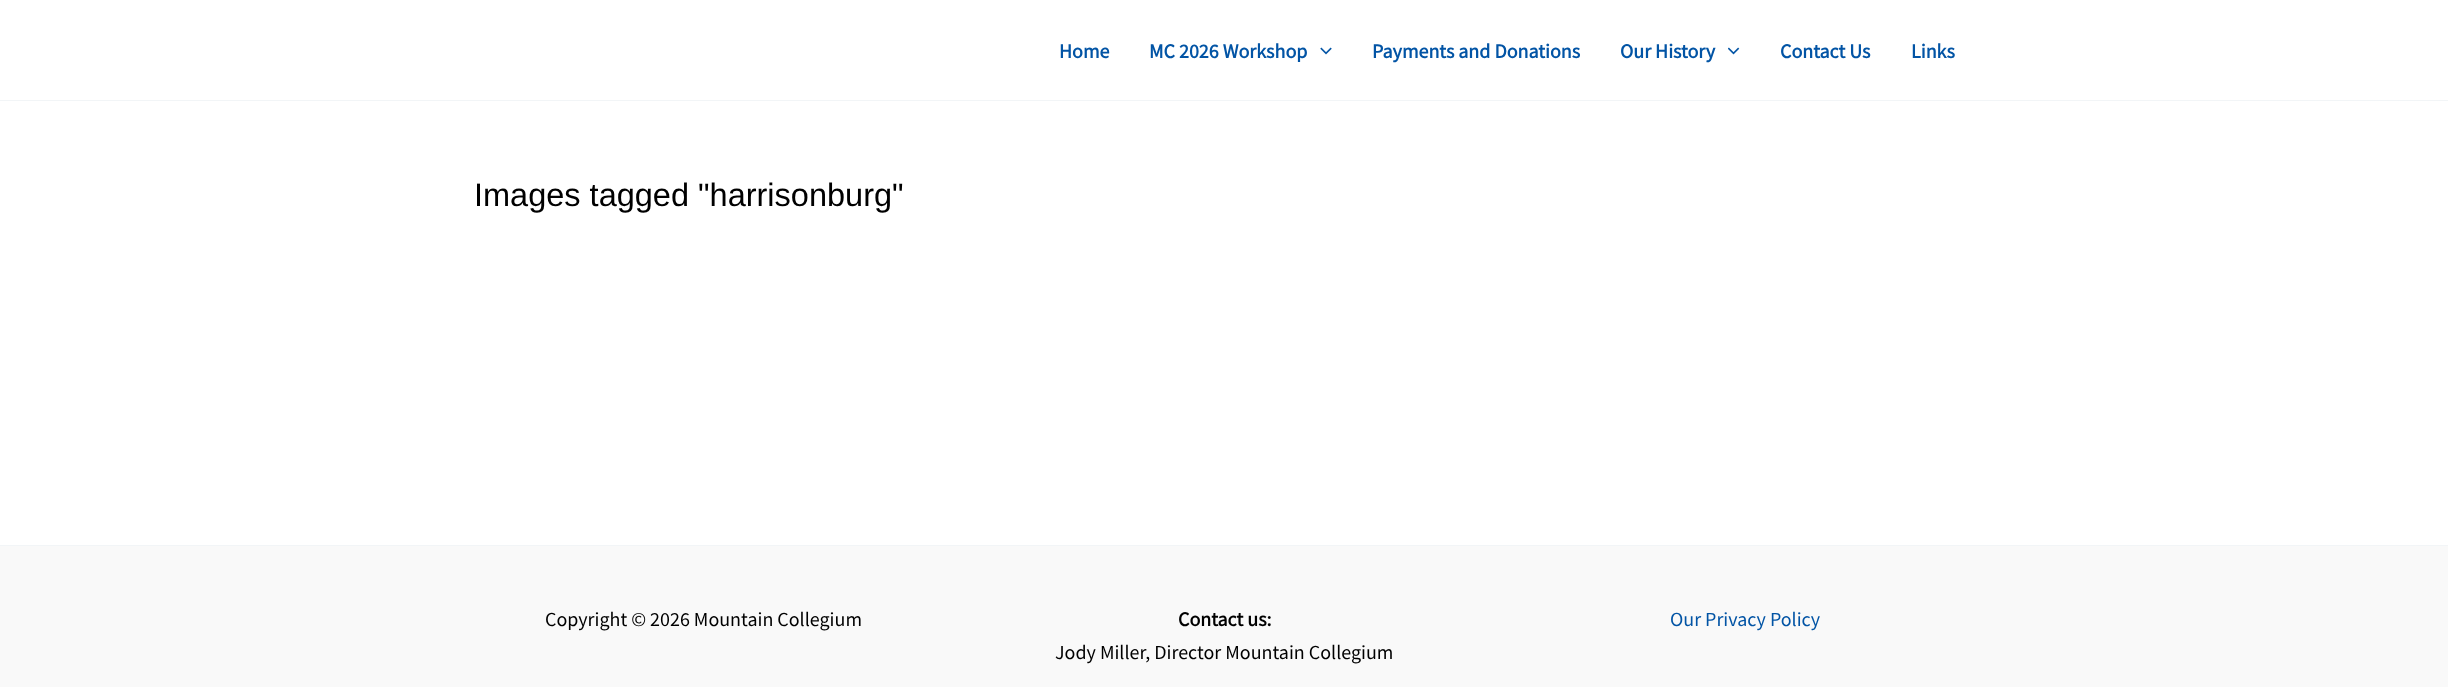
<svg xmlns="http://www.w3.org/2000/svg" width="2448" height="687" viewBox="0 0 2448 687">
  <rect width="100%" height="100%" fill="#fff"/>
  <path d="M0 100h2448v1H0z" fill="#f2f5f7"/>
  <image x="1320" y="47" width="12" height="8" href="img/1.png"/>
  <image x="1728" y="47" width="12" height="8" href="img/2.png"/>
  <path d="M0 546h2448v141H0z" fill="#f9f9f9"/>
  <path d="M0 545h2448v1H0z" fill="#f2f5f7"/>
  <g font-family="Source Sans Pro" font-size="20" font-weight="bold" fill="#0254a5">
    <text x="1059" y="58">Home</text>
    <text x="1149" y="58">MC 2026 Workshop</text>
    <text x="1372" y="58">Payments and Donations</text>
    <text x="1620" y="58">Our History</text>
    <text x="1780" y="58">Contact Us</text>
    <text x="1911" y="58">Links</text>
  </g>
  <text x="474" y="206" font-family="Liberation Sans" font-size="32.5" fill="#000">Images tagged "harrisonburg"</text>
  <text x="545" y="626" font-family="Source Sans Pro" font-size="20" fill="#000">Copyright © 2026 Mountain Collegium</text>
  <text x="1178" y="626" font-family="Source Sans Pro" font-size="20" font-weight="bold" fill="#000">Contact us:</text>
  <text x="1055" y="659" font-family="Source Sans Pro" font-size="20" fill="#000">Jody Miller, Director Mountain Collegium</text>
  <text x="1670" y="626" font-family="Source Sans Pro" font-size="20" fill="#0254a5">Our Privacy Policy</text>
</svg>
